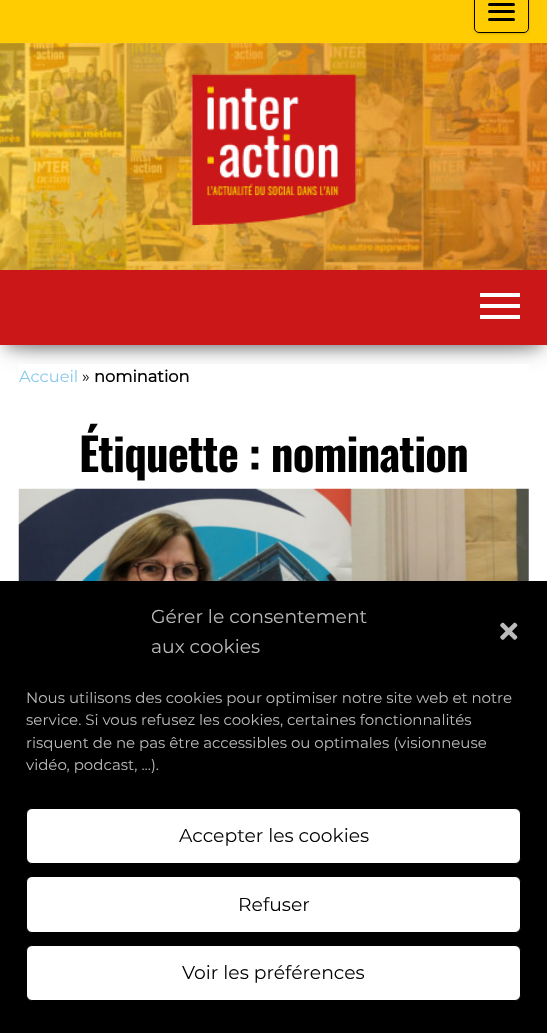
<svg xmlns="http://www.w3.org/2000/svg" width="547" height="1033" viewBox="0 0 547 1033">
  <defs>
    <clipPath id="clip1"><path d="M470 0H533V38H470ZM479-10H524C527-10 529-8 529-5V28C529 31 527 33 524 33H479C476 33 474 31 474 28V-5C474-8 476-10 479-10Z" clip-rule="evenodd"/></clipPath>
  </defs>
  <rect width="100%" height="100%" fill="#fff"/>
  <path d="M0 0h547v43H0z" fill="#ffcc01"/>
  <g clip-path="url(#clip1)">
    <rect x="474" y="-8" width="55" height="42" rx="5" fill="#00000026" filter="blur(1px)"/>
  </g>
  <rect x="474.5" y="-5.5" width="54" height="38" rx="4.5" fill="none" stroke="#000"/>
  <rect x="488" y="3" width="27" height="3" rx="1.5" fill="#000"/>
  <rect x="488" y="10" width="27" height="3" rx="1.5" fill="#000"/>
  <rect x="488" y="18" width="27" height="3" rx="1.5" fill="#000"/>
  <image x="0" y="43" width="547" height="227" href="img/1.png"/>
  <image x="191" y="73" width="166" height="152" href="img/2.png"/>
  <path d="M6 286h535v63H6z" fill="#00000033" filter="blur(6px)"/>
  <path d="M0 274h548v75H0z" fill="#0000001f" filter="blur(12.5px)"/>
  <path d="M15 298h518v45H15z" fill="#0000006b" filter="blur(12.5px)"/>
  <path d="M0 270h547v75H0z" fill="#cc1719"/>
  <path d="M480 293h40v4H480z" fill="#fff"/>
  <path d="M480 304h40v4H480z" fill="#fff"/>
  <path d="M480 315h40v4H480z" fill="#fff"/>
  <path d="M19 364h510v7H19z" fill="#fff"/>
  <image x="18" y="488" width="511" height="93" href="img/3.png"/>
  <path d="M0 581h547v452H0z" fill="#000"/>
  <image x="500" y="622" width="18" height="18" href="img/4.png"/>
  <rect x="26.5" y="808.5" width="494" height="55" rx="5.5" fill="#fff" stroke="#000"/>
  <rect x="26.5" y="876.5" width="494" height="56" rx="5.5" fill="#fff" stroke="#000"/>
  <rect x="26.5" y="945.5" width="494" height="55" rx="5.5" fill="#fff" stroke="#000"/>
  <text x="19" y="382" font-family="Montserrat" font-size="16.25" fill="#87c9ed">Accueil</text>
  <text x="82" y="382" font-family="Montserrat" font-size="16.25" fill="#000">»</text>
  <text x="94" y="382" font-family="Montserrat" font-size="16.25" font-weight="bold" fill="#000">nomination</text>
  <text x="79" y="472" font-family="Oswald" font-size="45" font-weight="bold" letter-spacing="-0.9" fill="#000">Étiquette : nomination</text>
  <g font-family="Montserrat" font-size="18.75" fill="#bbb">
    <text x="151" y="623">Gérer le consentement</text>
    <text x="151" y="653">aux cookies</text>
  </g>
  <g font-family="Montserrat" font-size="15" fill="#bbb">
    <text x="26" y="703">Nous utilisons des cookies pour optimiser notre site web et notre</text>
    <text x="26" y="725">service. Si vous refusez les cookies, certaines fonctionnalités</text>
    <text x="26" y="748">risquent de ne pas être accessibles ou optimales (visionneuse</text>
    <text x="26" y="770">vidéo, podcast, ...).</text>
  </g>
  <g font-family="Montserrat" font-size="18.75" fill="#000">
    <text x="179" y="842">Accepter les cookies</text>
    <text x="238" y="911">Refuser</text>
    <text x="182" y="979">Voir les préférences</text>
  </g>
</svg>
